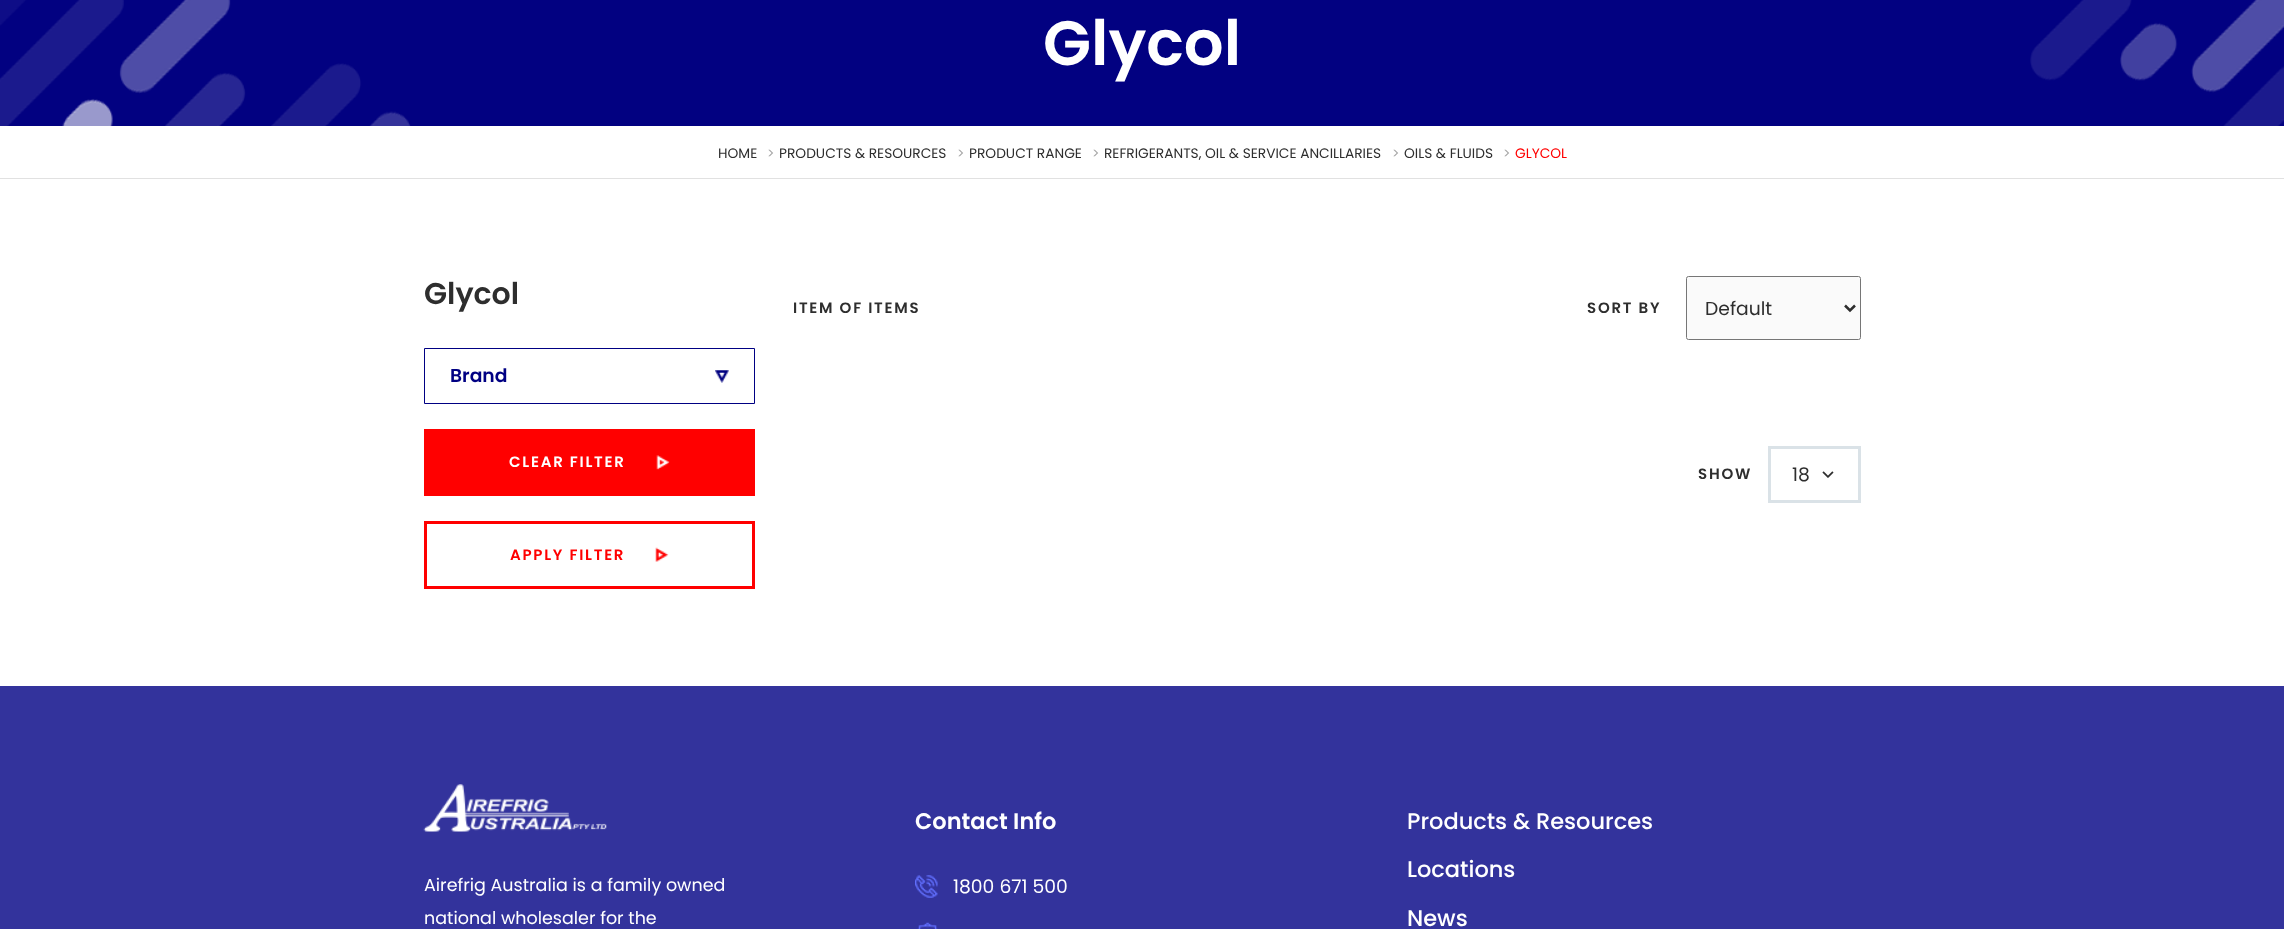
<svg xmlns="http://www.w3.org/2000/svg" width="2284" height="929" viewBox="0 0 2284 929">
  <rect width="100%" height="100%" fill="#fff"/>
  <path d="M0 0h2284v126H0z" fill="#020181"/>
  <image x="0" y="0" width="411" height="126" href="img/1.png"/>
  <image x="2030" y="0" width="254" height="126" href="img/2.png"/>
  <path d="M0 178h2284v1H0z" fill="#e1e1e1"/>
  <path d="M424.5 348.5h330v55H424.5z" fill="none" stroke="#000083"/>
  <image x="715" y="370" width="14" height="13" href="img/3.png"/>
  <path d="M424 429h331v67H424z" fill="#f00"/>
  <image x="656" y="455" width="14" height="15" href="img/4.png"/>
  <path d="M425.5 522.5h328v65H425.5z" fill="none" stroke="#f00" stroke-width="3"/>
  <image x="655" y="547" width="14" height="15" href="img/5.png"/>
  <rect x="1686.5" y="276.5" width="174" height="63" rx="2" fill="#fafafa" stroke="#767676"/>
  <path d="M1845 305.5L1850 310.5L1855 305.5" fill="none" stroke="#2e2e2e" stroke-width="2.5"/>
  <path d="M1769.5 447.5h90v54H1769.5z" fill="none" stroke="#dae2e7" stroke-width="3"/>
  <image x="1822" y="471" width="12" height="7" href="img/6.png"/>
  <path d="M0 686h2284v243H0z" fill="#33339c"/>
  <image x="423" y="784" width="184" height="48" href="img/7.png"/>
  <image x="915" y="875" width="23" height="23" href="img/8.png"/>
  <image x="917" y="922" width="21" height="7" href="img/9.png"/>
  <text x="1043" y="65" font-family="Poppins" font-size="62.5" font-weight="600" fill="#fff">Glycol</text>
  <text x="718" y="158" font-family="Poppins" font-size="13.75" fill="#2e2e2e">HOME</text>
  <text x="767" y="158" font-family="Poppins" font-size="13.75" fill="#a8a8a8">&gt;</text>
  <text x="779" y="158" font-family="Poppins" font-size="13.75" fill="#2e2e2e">PRODUCTS &amp; RESOURCES</text>
  <text x="957" y="158" font-family="Poppins" font-size="13.75" fill="#a8a8a8">&gt;</text>
  <text x="969" y="158" font-family="Poppins" font-size="13.75" fill="#2e2e2e">PRODUCT RANGE</text>
  <text x="1092" y="158" font-family="Poppins" font-size="13.75" fill="#a8a8a8">&gt;</text>
  <text x="1104" y="158" font-family="Poppins" font-size="13.75" fill="#2e2e2e">REFRIGERANTS, OIL &amp; SERVICE ANCILLARIES</text>
  <text x="1392" y="158" font-family="Poppins" font-size="13.75" fill="#a8a8a8">&gt;</text>
  <text x="1404" y="158" font-family="Poppins" font-size="13.75" fill="#2e2e2e">OILS &amp; FLUIDS</text>
  <text x="1503" y="158" font-family="Poppins" font-size="13.75" fill="#a8a8a8">&gt;</text>
  <text x="1515" y="158" font-family="Poppins" font-size="13.75" fill="#f00">GLYCOL</text>
  <text x="424" y="304" font-family="Poppins" font-size="30" font-weight="600" fill="#2e2e2e">Glycol</text>
  <text x="450" y="382" font-family="Poppins" font-size="18.75" font-weight="600" fill="#000083">Brand</text>
  <text x="509" y="467" font-family="Poppins" font-size="15" font-weight="600" letter-spacing="1.75" fill="#fff">CLEAR FILTER</text>
  <text x="510" y="560" font-family="Poppins" font-size="15" font-weight="600" letter-spacing="1.75" fill="#f00">APPLY FILTER</text>
  <g font-family="Poppins" font-size="15" font-weight="600" letter-spacing="1.75" fill="#2e2e2e">
    <text x="793" y="313">ITEM OF ITEMS</text>
    <text x="1587" y="313">SORT BY</text>
  </g>
  <text x="1705" y="315" font-family="Poppins" font-size="18.75" fill="#2e2e2e">Default</text>
  <text x="1698" y="479" font-family="Poppins" font-size="15" font-weight="600" letter-spacing="1.75" fill="#2e2e2e">SHOW</text>
  <text x="1792" y="481" font-family="Poppins" font-size="18.75" fill="#2e2e2e">18</text>
  <g font-family="Poppins" font-size="17.5" fill="#fff">
    <text x="424" y="891">Airefrig Australia is a family owned</text>
    <text x="424" y="924">national wholesaler for the</text>
  </g>
  <text x="915" y="829" font-family="Poppins" font-size="22.5" font-weight="600" fill="#fff">Contact Info</text>
  <text x="953" y="893" font-family="Poppins" font-size="18.75" fill="#fff">1800 671 500</text>
  <g font-family="Poppins" font-size="22.5" font-weight="500" fill="#fff">
    <text x="1407" y="829">Products &amp; Resources</text>
    <text x="1407" y="877">Locations</text>
    <text x="1407" y="926">News</text>
  </g>
</svg>
